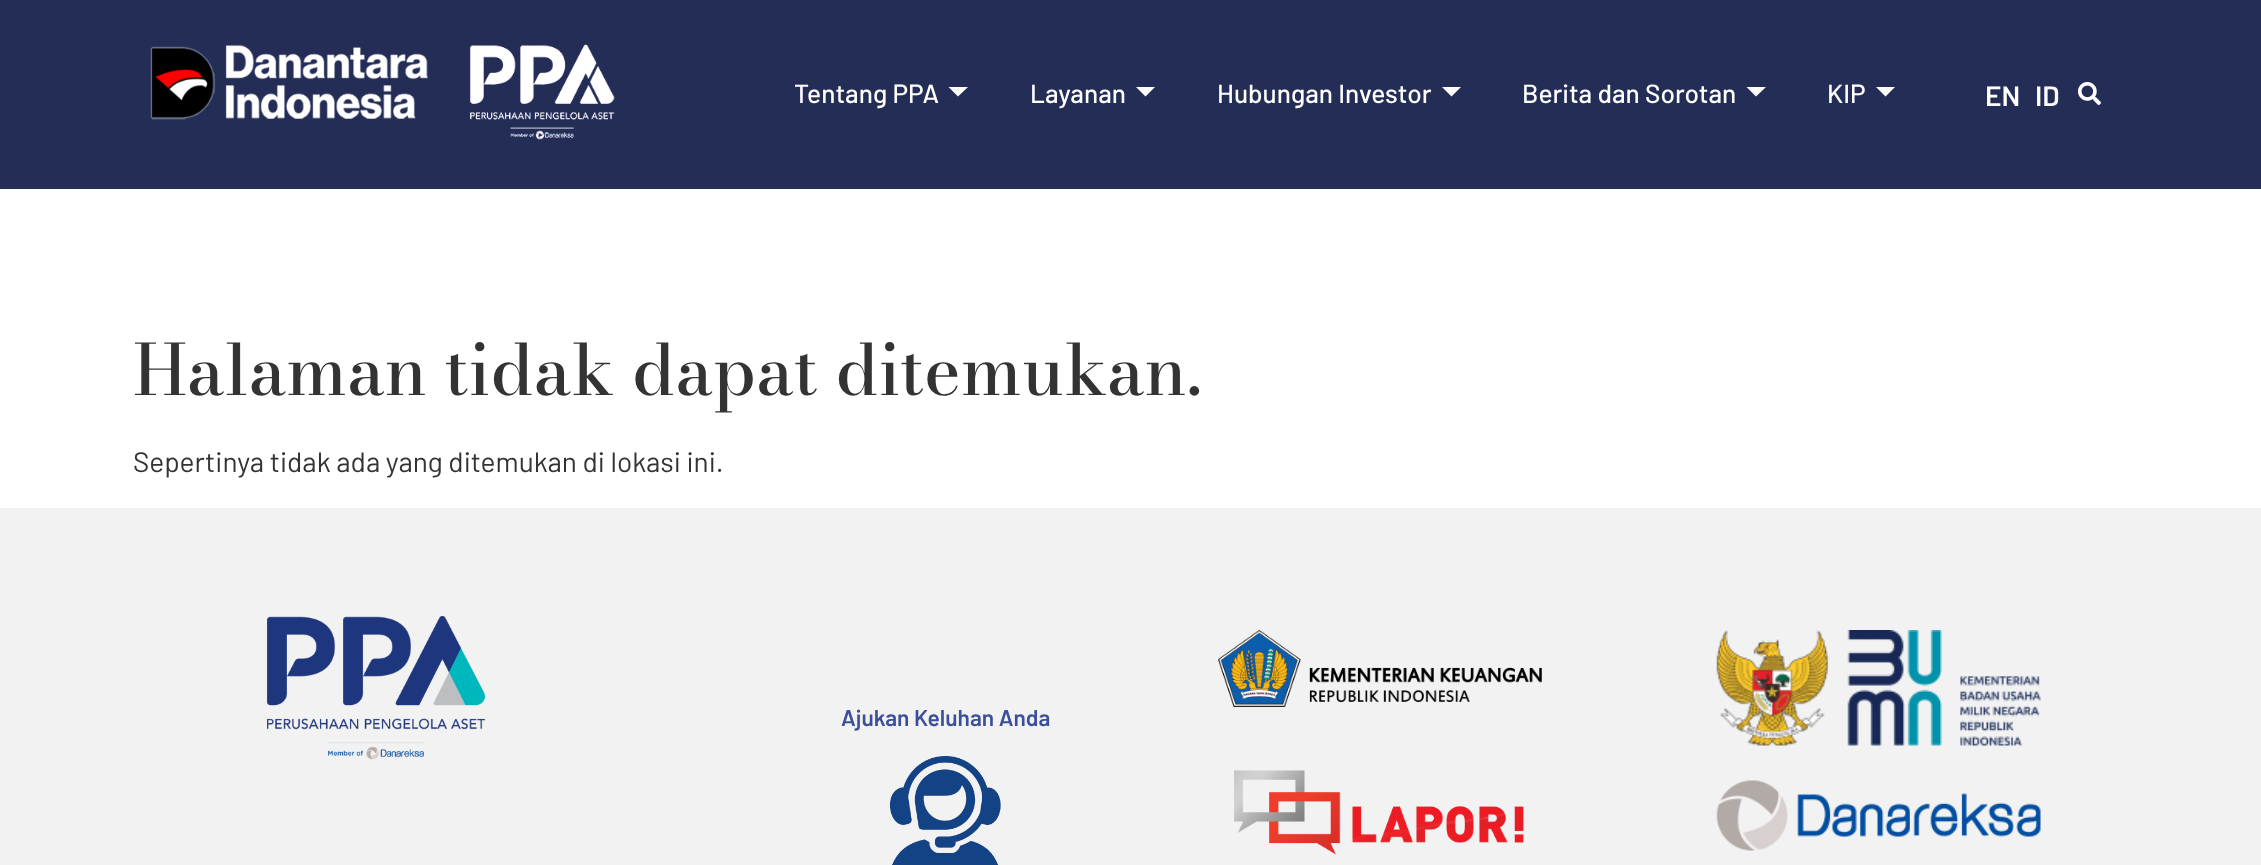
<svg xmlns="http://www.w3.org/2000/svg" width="2261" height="865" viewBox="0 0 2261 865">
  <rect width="100%" height="100%" fill="#fff"/>
  <path d="M0 0h2261v189H0z" fill="#232d56"/>
  <image x="150" y="44" width="465" height="96" href="img/1.png"/>
  <path d="M948.5 87H968L958 96.5Z" fill="#fff"/>
  <path d="M1136 87H1155L1145.5 96.5Z" fill="#fff"/>
  <path d="M1442 87H1461L1451.5 96.5Z" fill="#fff"/>
  <path d="M1746.5 87H1766L1756 96.5Z" fill="#fff"/>
  <path d="M1876 87H1895L1885.5 96.5Z" fill="#fff"/>
  <image x="2078" y="82" width="23" height="24" href="img/2.png"/>
  <path d="M0 508h2261v357H0z" fill="#f2f2f2"/>
  <image x="267" y="616" width="218" height="144" href="img/3.png"/>
  <image x="889" y="756" width="112" height="109" href="img/4.png"/>
  <image x="1218" y="630" width="324" height="77" href="img/5.png"/>
  <image x="1234" y="770" width="290" height="85" href="img/6.png"/>
  <image x="1716" y="630" width="325" height="116" href="img/7.png"/>
  <image x="1716" y="780" width="325" height="71" href="img/8.png"/>
  <g font-family="Barlow" font-size="26.25" font-weight="500" fill="#fff">
    <text x="794" y="103">Tentang PPA</text>
    <text x="1030" y="103">Layanan</text>
    <text x="1217" y="103">Hubungan Investor</text>
    <text x="1522" y="103">Berita dan Sorotan</text>
    <text x="1827" y="103">KIP</text>
  </g>
  <g font-family="Barlow" font-size="28" font-weight="600" fill="#fff">
    <text x="1985" y="106">EN</text>
    <text x="2035" y="106">ID</text>
  </g>
  <text x="133" y="395" font-family="Bodoni Moda" font-size="70" font-weight="500" fill="#333">Halaman tidak dapat ditemukan.</text>
  <text x="133" y="472" font-family="Barlow" font-size="28" fill="#333">Sepertinya tidak ada yang ditemukan di lokasi ini.</text>
  <text x="841" y="726" font-family="Barlow" font-size="22.75" font-weight="600" fill="#3b4f9a">Ajukan Keluhan Anda</text>
</svg>
